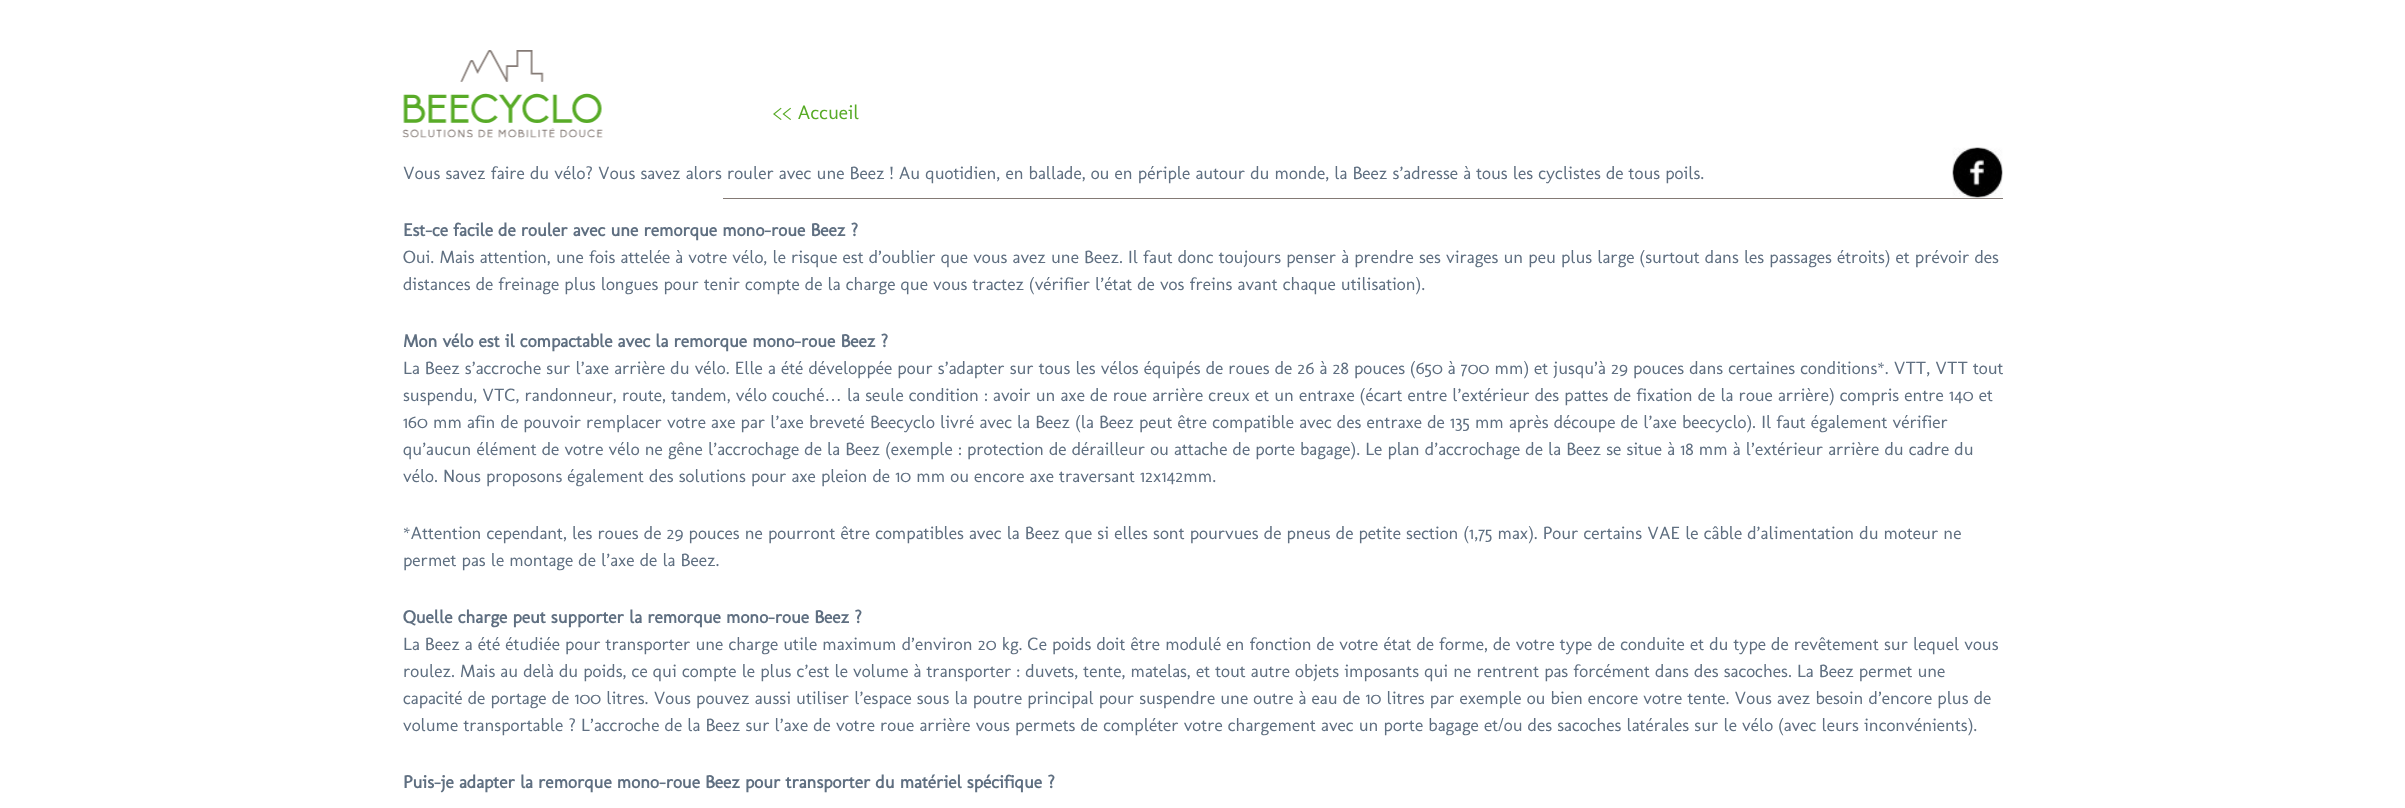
<svg xmlns="http://www.w3.org/2000/svg" width="2405" height="808" viewBox="0 0 2405 808">
  <rect width="100%" height="100%" fill="#fff"/>
  <image x="402" y="50" width="201" height="88" href="img/1.png"/>
  <path d="M723 198h1280v1H723z" fill="#847a75"/>
  <image x="1952" y="147" width="51" height="51" href="img/2.png"/>
  <text x="773" y="119" font-family="Molengo" font-size="20" fill="#58ab27">&lt;&lt; Accueil</text>
  <text x="403" y="179" font-family="Molengo" font-size="18" fill="#5f6f81">Vous savez faire du vélo? Vous savez alors rouler avec une Beez ! Au quotidien, en ballade, ou en périple autour du monde, la Beez s’adresse à tous les cyclistes de tous poils.</text>
  <text x="403" y="236" font-family="Molengo" font-size="18" font-weight="bold" fill="#5f6f81">Est-ce facile de rouler avec une remorque mono-roue Beez ?</text>
  <g font-family="Molengo" font-size="18" fill="#5f6f81">
    <text x="403" y="263">Oui. Mais attention, une fois attelée à votre vélo, le risque est d’oublier que vous avez une Beez. Il faut donc toujours penser à prendre ses virages un peu plus large (surtout dans les passages étroits) et prévoir des</text>
    <text x="403" y="290">distances de freinage plus longues pour tenir compte de la charge que vous tractez (vérifier l’état de vos freins avant chaque utilisation).</text>
  </g>
  <text x="403" y="347" font-family="Molengo" font-size="18" font-weight="bold" fill="#5f6f81">Mon vélo est il compactable avec la remorque mono-roue Beez ?</text>
  <g font-family="Molengo" font-size="18" fill="#5f6f81">
    <text x="403" y="374">La Beez s’accroche sur l’axe arrière du vélo. Elle a été développée pour s’adapter sur tous les vélos équipés de roues de 26 à 28 pouces (650 à 700 mm) et jusqu’à 29 pouces dans certaines conditions*. VTT, VTT tout</text>
    <text x="403" y="401">suspendu, VTC, randonneur, route, tandem, vélo couché</text>
  </g>
  <text x="824" y="401" font-family="Liberation Sans" font-size="18" fill="#5f6f81">…</text>
  <g font-family="Molengo" font-size="18" fill="#5f6f81">
    <text x="847" y="401">la seule condition : avoir un axe de roue arrière creux et un entraxe (écart entre l’extérieur des pattes de fixation de la roue arrière) compris entre 140 et</text>
    <text x="403" y="428">160 mm afin de pouvoir remplacer votre axe par l’axe breveté Beecyclo livré avec la Beez (la Beez peut être compatible avec des entraxe de 135 mm après découpe de l’axe beecyclo). Il faut également vérifier</text>
    <text x="403" y="455">qu’aucun élément de votre vélo ne gêne l’accrochage de la Beez (exemple : protection de dérailleur ou attache de porte bagage). Le plan d’accrochage de la Beez se situe à 18 mm à l’extérieur arrière du cadre du</text>
    <text x="403" y="482">vélo. Nous proposons également des solutions pour axe pleion de 10 mm ou encore axe traversant 12x142mm.</text>
    <text x="403" y="539">*Attention cependant, les roues de 29 pouces ne pourront être compatibles avec la Beez que si elles sont pourvues de pneus de petite section (1,75 max). Pour certains VAE le câble d’alimentation du moteur ne</text>
    <text x="403" y="566">permet pas le montage de l’axe de la Beez.</text>
  </g>
  <text x="403" y="623" font-family="Molengo" font-size="18" font-weight="bold" fill="#5f6f81">Quelle charge peut supporter la remorque mono-roue Beez ?</text>
  <g font-family="Molengo" font-size="18" fill="#5f6f81">
    <text x="403" y="650">La Beez a été étudiée pour transporter une charge utile maximum d’environ 20 kg. Ce poids doit être modulé en fonction de votre état de forme, de votre type de conduite et du type de revêtement sur lequel vous</text>
    <text x="403" y="677">roulez. Mais au delà du poids, ce qui compte le plus c’est le volume à transporter : duvets, tente, matelas, et tout autre objets imposants qui ne rentrent pas forcément dans des sacoches. La Beez permet une</text>
    <text x="403" y="704">capacité de portage de 100 litres. Vous pouvez aussi utiliser l’espace sous la poutre principal pour suspendre une outre à eau de 10 litres par exemple ou bien encore votre tente. Vous avez besoin d’encore plus de</text>
    <text x="403" y="731">volume transportable ? L’accroche de la Beez sur l’axe de votre roue arrière vous permets de compléter votre chargement avec un porte bagage et/ou des sacoches latérales sur le vélo (avec leurs inconvénients).</text>
  </g>
  <text x="403" y="788" font-family="Molengo" font-size="18" font-weight="bold" fill="#5f6f81">Puis-je adapter la remorque mono-roue Beez pour transporter du matériel spécifique ?</text>
</svg>
